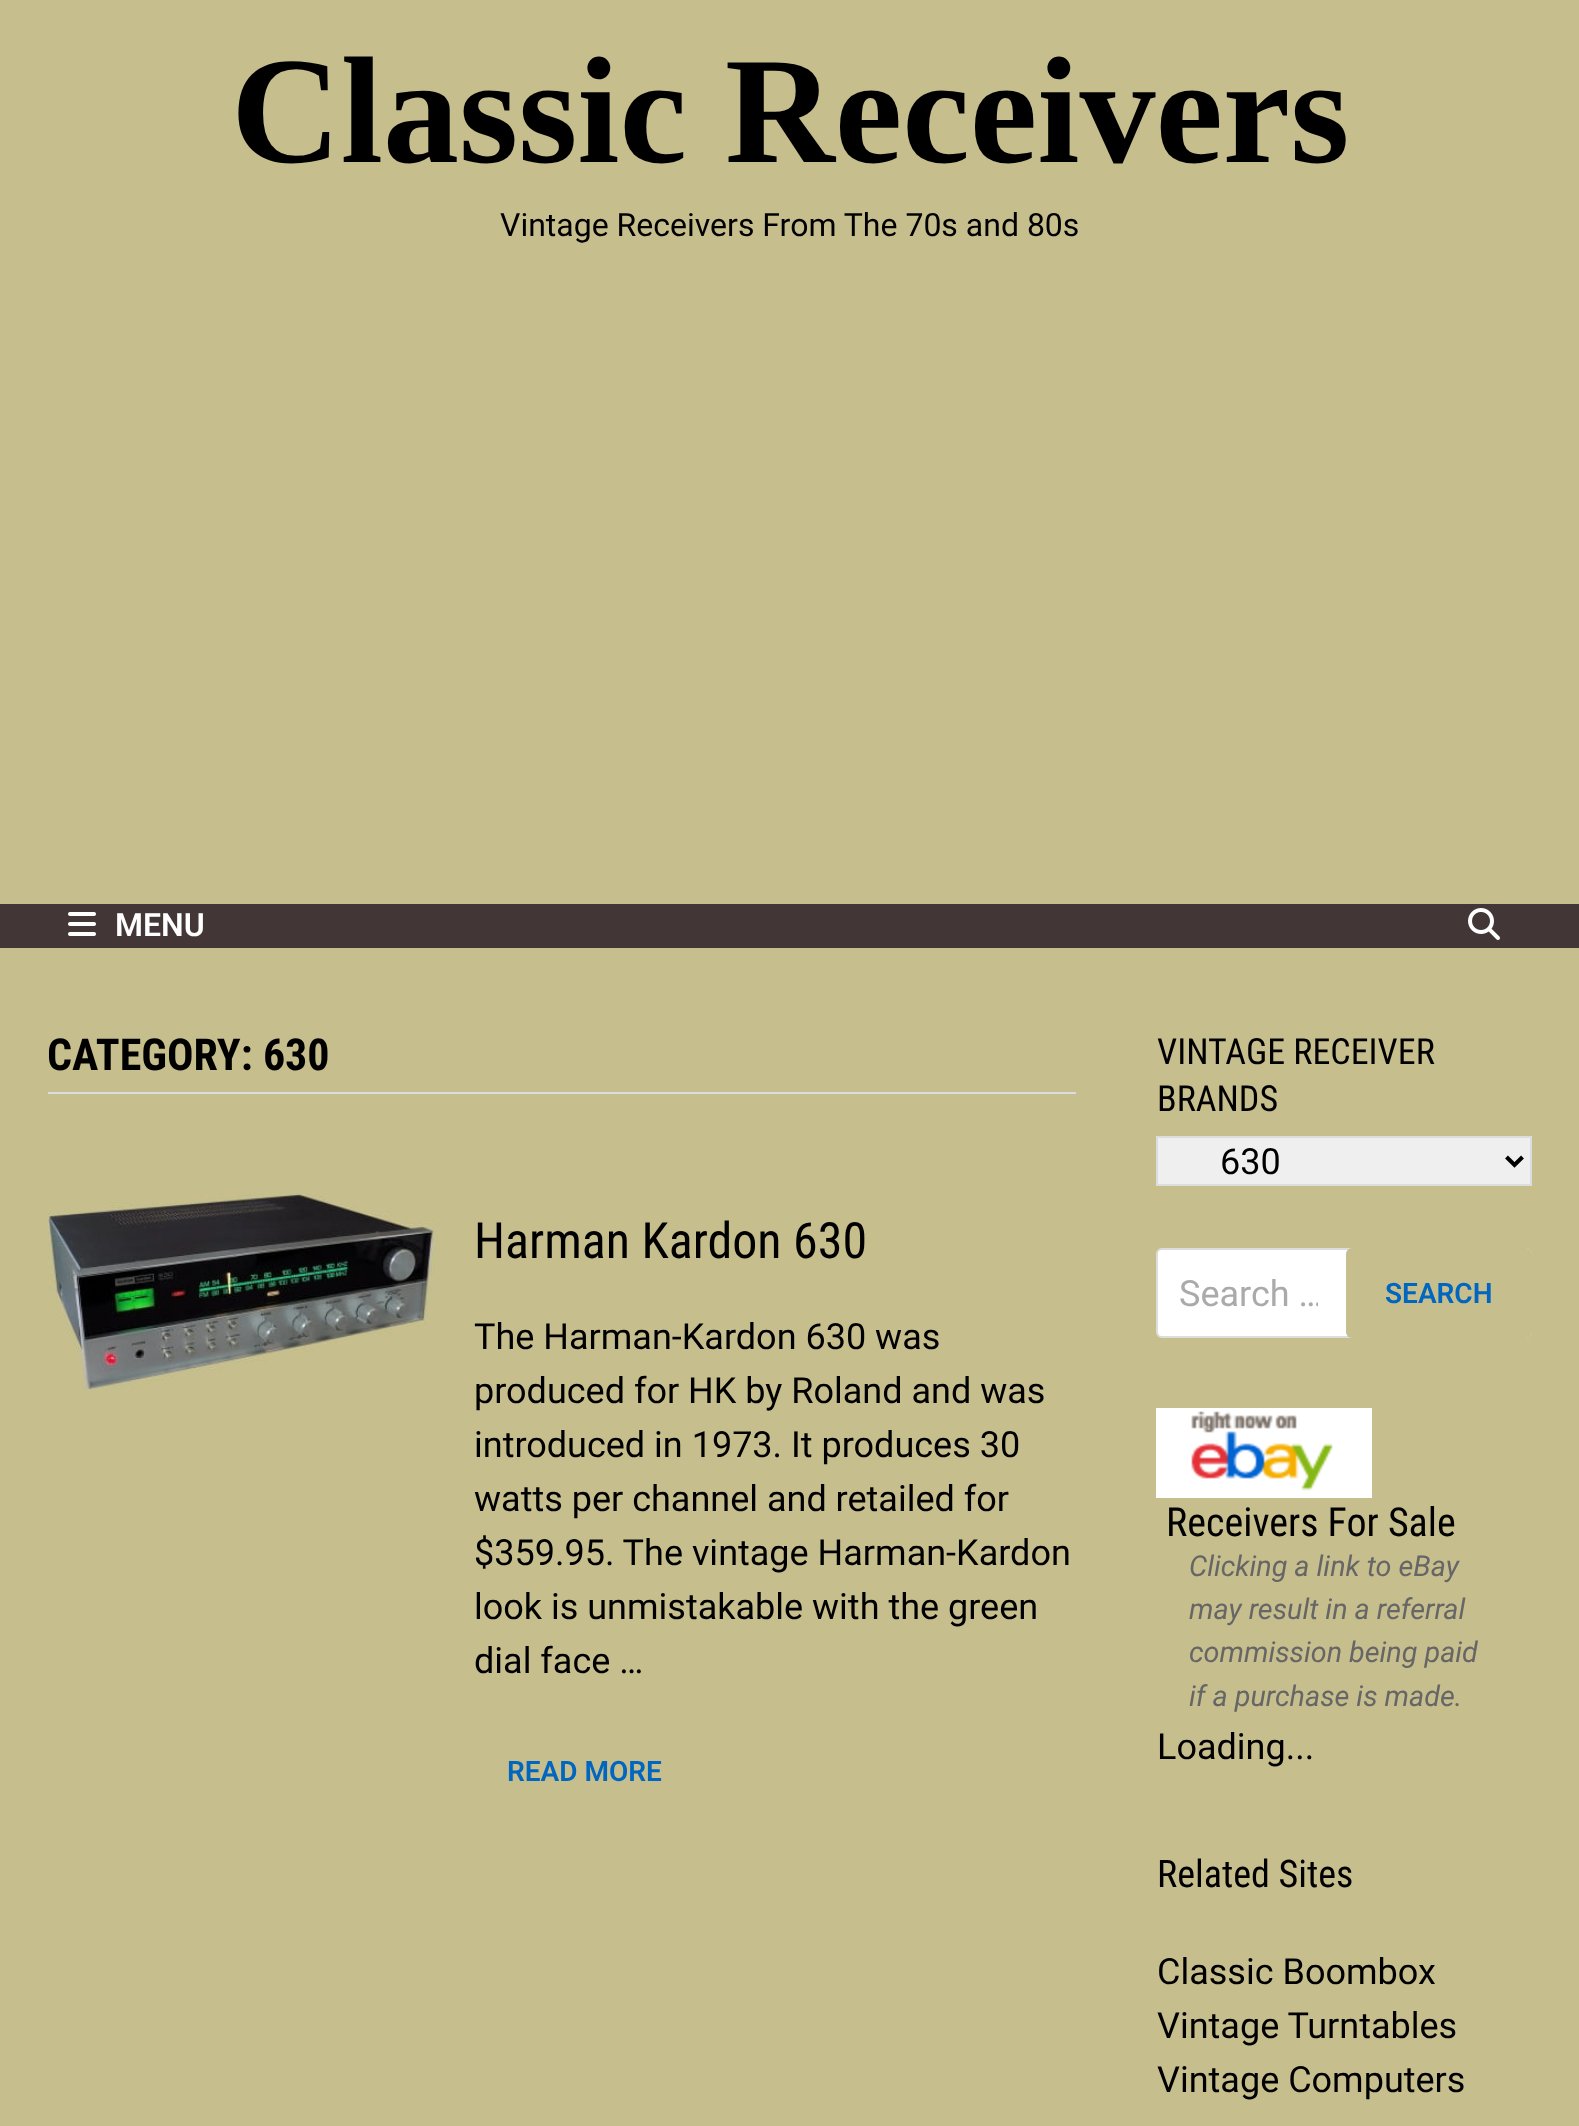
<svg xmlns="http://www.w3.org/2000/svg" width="1579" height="2126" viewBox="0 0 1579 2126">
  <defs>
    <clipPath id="clip1"><path d="M1178 1272h140v42H1178z"/></clipPath>
  </defs>
  <rect width="100%" height="100%" fill="#c7be8d"/>
  <path d="M0 904h1579v44H0z" fill="#423736"/>
  <image x="68" y="912" width="28" height="24" href="img/1.png"/>
  <image x="1468" y="908" width="32" height="32" href="img/2.png"/>
  <path d="M48 1092h1028v2H48z" fill="#ddd"/>
  <image x="48" y="1194" width="386" height="196" href="img/3.png"/>
  <path d="M1157 1137h374v48H1157z" fill="#efefef" stroke="#ddd" stroke-width="2"/>
  <path d="M1506.5 1157L1514.5 1165L1522.5 1157" fill="none" stroke="#000" stroke-width="4"/>
  <rect x="1157" y="1249" width="374" height="88" rx="5" fill="#fff" stroke="#ddd" stroke-width="2"/>
  <rect x="1346" y="1248" width="186" height="90" rx="6" fill="#c7be8d"/>
  <image x="1156" y="1408" width="216" height="90" href="img/4.png"/>
  <text x="231" y="162" font-family="Liberation Serif" font-size="152" font-weight="bold" fill="#000">Classic Receivers</text>
  <text x="500" y="236" font-family="Roboto" font-size="32" fill="#000">Vintage Receivers From The 70s and 80s</text>
  <text x="115" y="936" font-family="Roboto" font-size="32" font-weight="600" fill="#fff">MENU</text>
  <text x="47" y="1070" font-family="Roboto Condensed" font-size="44" font-weight="bold" fill="#000">CATEGORY: 630</text>
  <text x="474" y="1258" font-family="Roboto Condensed" font-size="50" fill="#000">Harman Kardon 630</text>
  <g font-family="Roboto" font-size="36" fill="#000">
    <text x="474" y="1349">The Harman-Kardon 630 was</text>
    <text x="474" y="1403">produced for HK by Roland and was</text>
    <text x="474" y="1457">introduced in 1973. It produces 30</text>
    <text x="474" y="1511">watts per channel and retailed for</text>
    <text x="474" y="1565">$359.95. The vintage Harman-Kardon</text>
    <text x="474" y="1619">look is unmistakable with the green</text>
    <text x="474" y="1673">dial face …</text>
  </g>
  <text x="507" y="1781" font-family="Roboto" font-size="28" font-weight="600" fill="#0066bf">READ MORE</text>
  <g font-family="Roboto Condensed" font-size="36" fill="#000">
    <text x="1157" y="1064">VINTAGE RECEIVER</text>
    <text x="1157" y="1111">BRANDS</text>
  </g>
  <text x="1220" y="1174" font-family="Roboto" font-size="36" fill="#000">630</text>
  <g clip-path="url(#clip1)">
    <text x="1179" y="1306" font-family="Roboto" font-size="36" fill="#aaa">Search …</text>
  </g>
  <text x="1385" y="1303" font-family="Roboto" font-size="28" font-weight="600" fill="#0066bf">SEARCH</text>
  <text x="1166" y="1536" font-family="Roboto Condensed" font-size="40" fill="#000">Receivers For Sale</text>
  <g font-family="Roboto" font-size="28.75" font-style="italic" fill="#666">
    <text x="1189" y="1576">Clicking a link to eBay</text>
    <text x="1189" y="1619">may result in a referral</text>
    <text x="1189" y="1662">commission being paid</text>
    <text x="1189" y="1706">if a purchase is made.</text>
  </g>
  <text x="1157" y="1759" font-family="Roboto" font-size="36" fill="#000">Loading...</text>
  <text x="1157" y="1887" font-family="Roboto Condensed" font-size="38" fill="#000">Related Sites</text>
  <g font-family="Roboto" font-size="36" fill="#000">
    <text x="1157" y="1984">Classic Boombox</text>
    <text x="1157" y="2038">Vintage Turntables</text>
    <text x="1157" y="2092">Vintage Computers</text>
  </g>
</svg>
